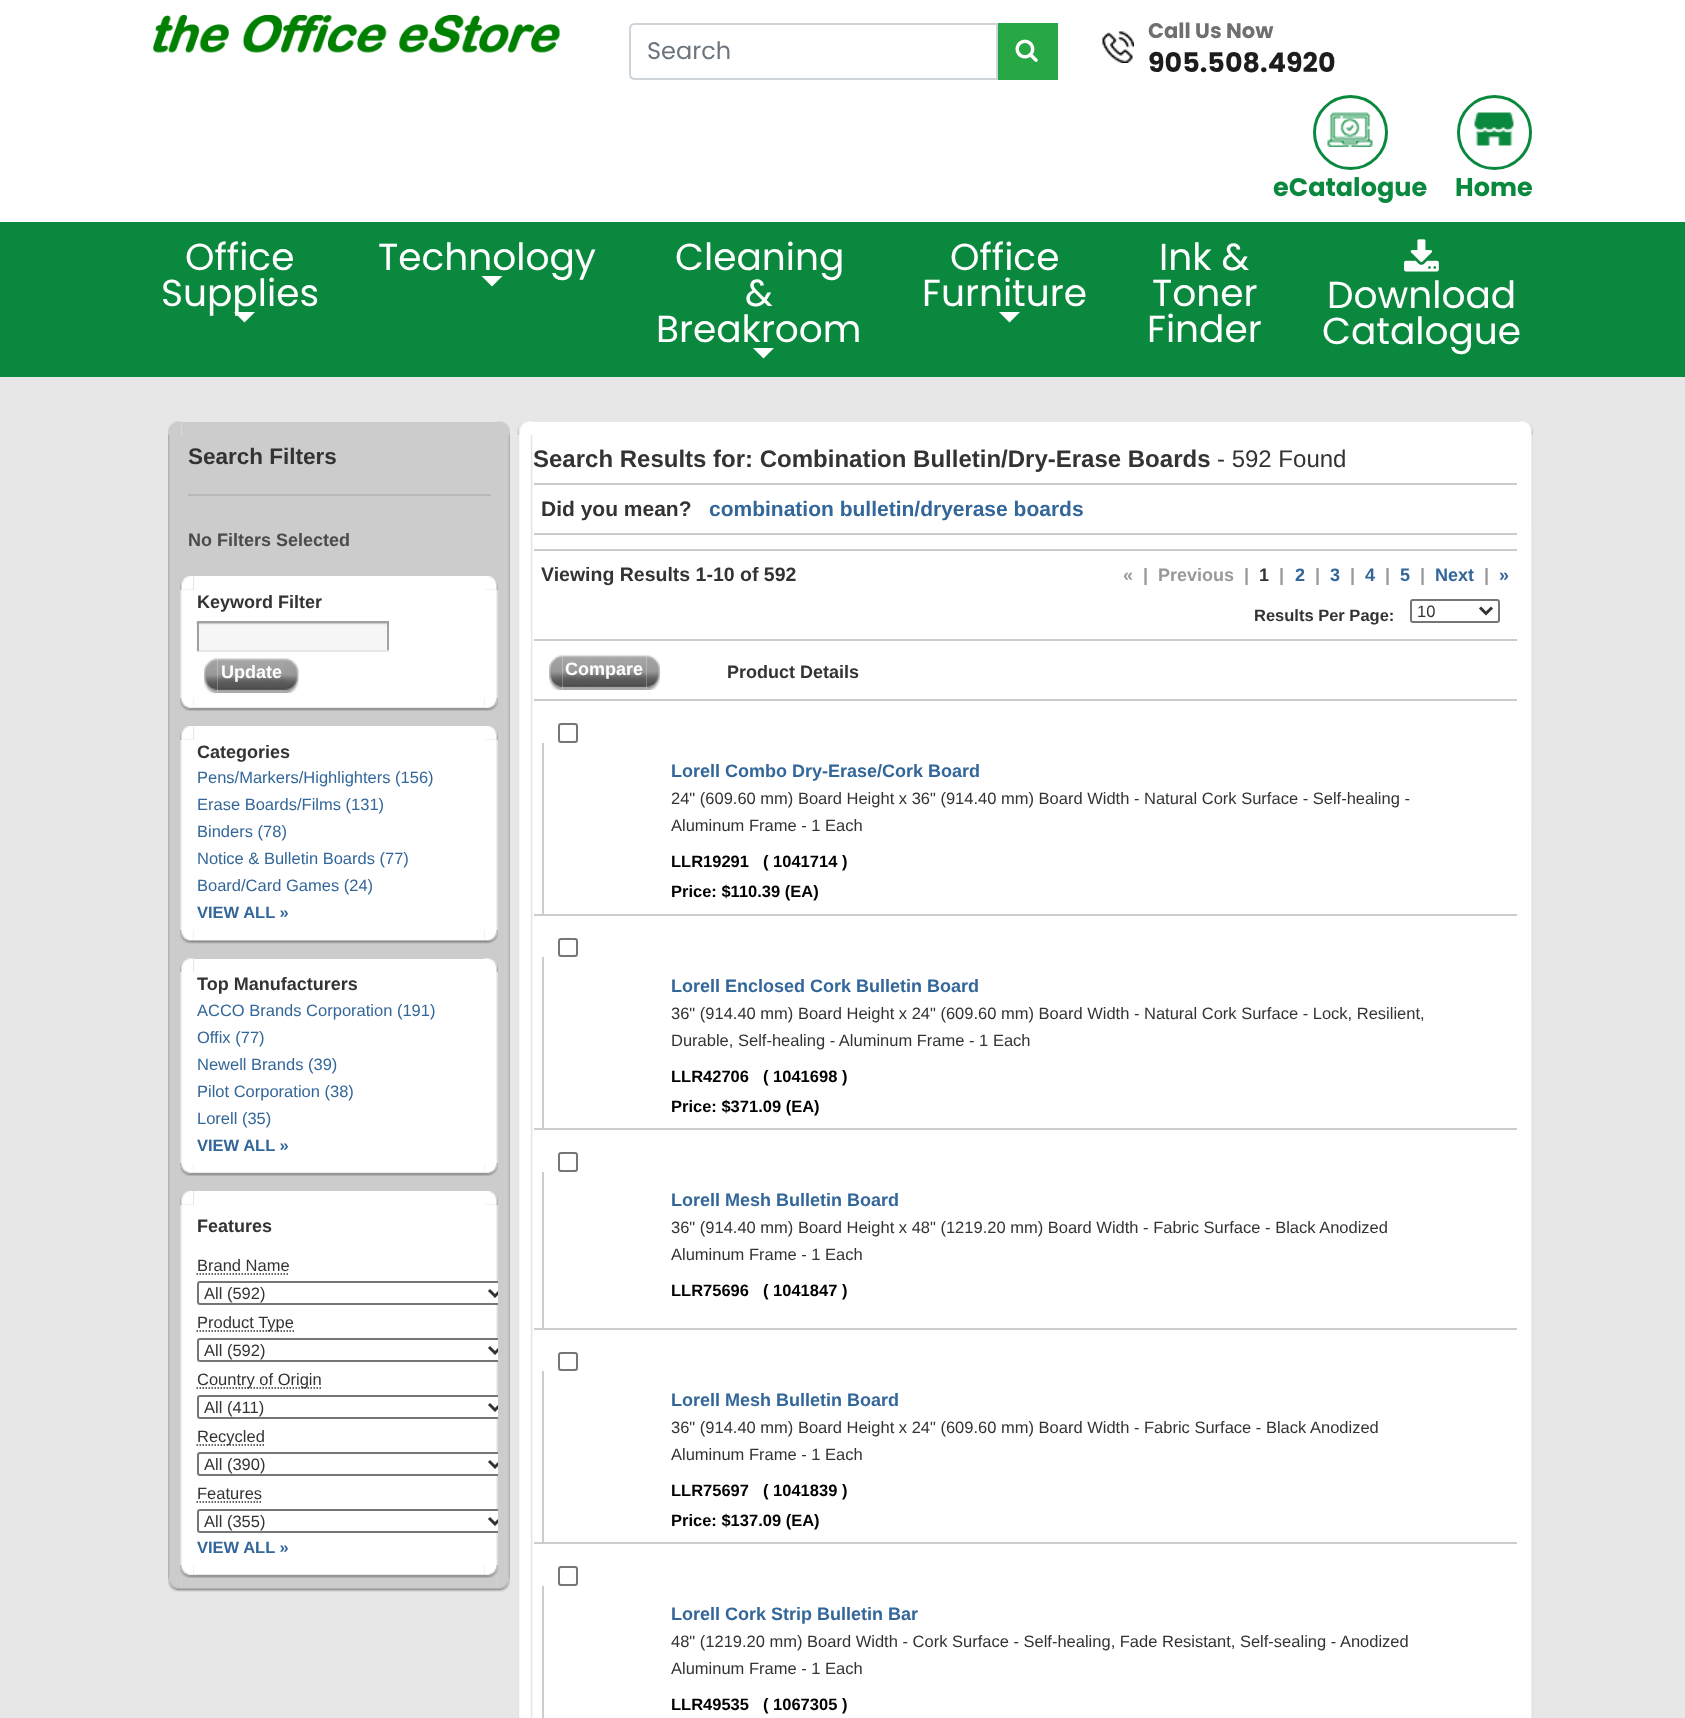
<svg xmlns="http://www.w3.org/2000/svg" width="1685" height="1718" viewBox="0 0 1685 1718">
  <defs>
    <clipPath id="clip1"><path d="M189 1205h309v360H189z"/></clipPath>
  </defs>
  <rect width="100%" height="100%" fill="#fff"/>
  <image x="0" y="377" width="1685" height="1341" href="img/1.png"/>
  <image x="153" y="15" width="407" height="38" href="img/2.png"/>
  <path d="M635 24H997V79H635C632 79 630 77 630 74V29C630 26 632 24 635 24Z" fill="none" stroke="#ced4da" stroke-width="2"/>
  <path d="M998 23h60v57H998z" fill="#28a745"/>
  <image x="1015" y="39" width="23" height="23" href="img/3.png"/>
  <image x="1102" y="31" width="32" height="32" href="img/4.png"/>
  <circle cx="1350.5" cy="132.5" r="36" fill="none" stroke="#0a883e" stroke-width="3"/>
  <image x="1327" y="112" width="46" height="35" href="img/5.png"/>
  <circle cx="1494.5" cy="132.5" r="36" fill="none" stroke="#0a883e" stroke-width="3"/>
  <image x="1474" y="112" width="40" height="34" href="img/6.png"/>
  <path d="M0 222h1685v155H0z" fill="#0a883e"/>
  <path d="M234 312H255L244.5 322.5Z" fill="#fff"/>
  <path d="M481.5 276H502.5L492 286.5Z" fill="#fff"/>
  <path d="M753 348H774L763.5 358.5Z" fill="#fff"/>
  <path d="M999 312H1020L1009.5 322.5Z" fill="#fff"/>
  <image x="1404" y="239" width="35" height="33" href="img/7.png"/>
  <image x="168" y="421" width="14" height="14" href="img/8.png"/>
  <image x="496" y="421" width="14" height="14" href="img/9.png"/>
  <path d="M182 422h315v13H182z" fill="#ccc"/>
  <path d="M168 435h342v1143H168z" fill="#ccc"/>
  <image x="168" y="435" width="2" height="1143" href="img/10.png"/>
  <image x="508" y="435" width="2" height="1143" href="img/11.png"/>
  <path d="M188 494h303v2H188z" fill="#b8b8b8"/>
  <image x="180" y="576" width="14" height="14" href="img/12.png"/>
  <image x="485" y="576" width="13" height="14" href="img/13.png"/>
  <path d="M194 576h291v14H194z" fill="#fff"/>
  <path d="M180 590h318v108H180z" fill="#fff"/>
  <image x="180" y="589" width="14" height="109" href="img/14.png"/>
  <image x="484" y="697" width="14" height="14" href="img/21.png"/>
  <image x="485" y="589" width="13" height="109" href="img/15.png"/>
  <image x="196" y="621" width="191" height="30" href="img/16.png"/>
  <path d="M197 621h192v2H197z" fill="#a0a0a0"/>
  <path d="M387 621h2v30H387z" fill="#a1a1a2"/>
  <path d="M197 650h192v2H197z" fill="#e6e6e6"/>
  <path d="M197 621h2v30H197z" fill="#a1a1a2"/>
  <image x="204" y="658" width="14" height="35" href="img/17.png"/>
  <image x="217" y="658" width="68" height="35" href="img/18.png"/>
  <image x="285" y="658" width="14" height="35" href="img/19.png"/>
  <image x="180" y="697" width="14" height="14" href="img/20.png"/>
  <image x="193" y="698" width="292" height="13" href="img/22.png"/>
  <image x="180" y="726" width="14" height="14" href="img/12.png"/>
  <image x="485" y="726" width="13" height="14" href="img/13.png"/>
  <path d="M194 726h291v14H194z" fill="#fff"/>
  <path d="M180 740h318v190H180z" fill="#fff"/>
  <image x="180" y="739" width="14" height="191" href="img/23.png"/>
  <image x="485" y="739" width="13" height="191" href="img/24.png"/>
  <image x="180" y="930" width="14" height="14" href="img/25.png"/>
  <image x="484" y="930" width="14" height="14" href="img/26.png"/>
  <image x="193" y="930" width="292" height="14" href="img/27.png"/>
  <image x="180" y="958" width="14" height="14" href="img/28.png"/>
  <image x="484" y="958" width="14" height="14" href="img/29.png"/>
  <path d="M194 959h291v13H194z" fill="#fff"/>
  <path d="M180 972h318v191H180z" fill="#fff"/>
  <image x="180" y="972" width="2" height="191" href="img/30.png"/>
  <image x="484" y="1162" width="14" height="14" href="img/21.png"/>
  <image x="496" y="972" width="2" height="191" href="img/31.png"/>
  <image x="180" y="1162" width="14" height="14" href="img/20.png"/>
  <image x="193" y="1163" width="292" height="13" href="img/22.png"/>
  <image x="180" y="1191" width="14" height="14" href="img/12.png"/>
  <image x="485" y="1191" width="13" height="14" href="img/13.png"/>
  <path d="M194 1191h291v14H194z" fill="#fff"/>
  <path d="M180 1205h318v360H180z" fill="#fff"/>
  <image x="180" y="1204" width="14" height="361" href="img/32.png"/>
  <image x="484" y="1564" width="14" height="14" href="img/21.png"/>
  <image x="485" y="1204" width="13" height="361" href="img/33.png"/>
  <path d="M196.5 1274H289.5" fill="none" stroke="#333" stroke-width="1.5" stroke-dasharray="1.5 1.5"/>
  <path d="M200 1281H498V1305H200C198.5 1305 197 1303.5 197 1302V1284C197 1282.5 198.5 1281 200 1281Z" fill="#fff"/>
  <g clip-path="url(#clip1)">
    <rect x="198" y="1282" width="310" height="22" rx="2" fill="none" stroke="#767676" stroke-width="2"/>
    <path d="M489 1290L495 1296L501 1290" fill="none" stroke="#333" stroke-width="3"/>
  </g>
  <path d="M196.5 1331H294" fill="none" stroke="#333" stroke-width="1.5" stroke-dasharray="1.5 1.5"/>
  <path d="M200 1338H498V1362H200C198.5 1362 197 1360.5 197 1359V1341C197 1339.5 198.5 1338 200 1338Z" fill="#fff"/>
  <g clip-path="url(#clip1)">
    <rect x="198" y="1339" width="310" height="22" rx="2" fill="none" stroke="#767676" stroke-width="2"/>
    <path d="M489 1347L495 1353L501 1347" fill="none" stroke="#333" stroke-width="3"/>
  </g>
  <path d="M196.5 1388H321" fill="none" stroke="#333" stroke-width="1.5" stroke-dasharray="1.5 1.5"/>
  <path d="M200 1395H498V1419H200C198.5 1419 197 1417.5 197 1416V1398C197 1396.5 198.5 1395 200 1395Z" fill="#fff"/>
  <g clip-path="url(#clip1)">
    <rect x="198" y="1396" width="310" height="22" rx="2" fill="none" stroke="#767676" stroke-width="2"/>
    <path d="M489 1404L495 1410L501 1404" fill="none" stroke="#333" stroke-width="3"/>
  </g>
  <path d="M196.5 1445H264" fill="none" stroke="#333" stroke-width="1.5" stroke-dasharray="1.5 1.5"/>
  <path d="M200 1452H498V1476H200C198.5 1476 197 1474.5 197 1473V1455C197 1453.5 198.5 1452 200 1452Z" fill="#fff"/>
  <g clip-path="url(#clip1)">
    <rect x="198" y="1453" width="310" height="22" rx="2" fill="none" stroke="#767676" stroke-width="2"/>
    <path d="M489 1461L495 1467L501 1461" fill="none" stroke="#333" stroke-width="3"/>
  </g>
  <path d="M196.5 1502H261" fill="none" stroke="#333" stroke-width="1.5" stroke-dasharray="1.5 1.5"/>
  <path d="M200 1509H498V1533H200C198.5 1533 197 1531.5 197 1530V1512C197 1510.5 198.5 1509 200 1509Z" fill="#fff"/>
  <g clip-path="url(#clip1)">
    <rect x="198" y="1510" width="310" height="22" rx="2" fill="none" stroke="#767676" stroke-width="2"/>
    <path d="M489 1518L495 1524L501 1518" fill="none" stroke="#333" stroke-width="3"/>
  </g>
  <image x="180" y="1564" width="14" height="14" href="img/20.png"/>
  <image x="193" y="1565" width="292" height="13" href="img/34.png"/>
  <image x="168" y="1578" width="14" height="14" href="img/35.png"/>
  <image x="496" y="1578" width="14" height="14" href="img/36.png"/>
  <image x="181" y="1578" width="316" height="14" href="img/37.png"/>
  <image x="517" y="421" width="16" height="14" href="img/38.png"/>
  <image x="1519" y="421" width="14" height="14" href="img/39.png"/>
  <path d="M532 422h988v13H532z" fill="#fff"/>
  <path d="M518 435h1015v1283H518z" fill="#fff"/>
  <image x="518" y="435" width="15" height="1283" href="img/40.png"/>
  <image x="1531" y="435" width="2" height="1283" href="img/41.png"/>
  <path d="M534 483h983v2H534z" fill="#ccc"/>
  <path d="M534 533h983v2H534z" fill="#ccc"/>
  <path d="M534 549h983v2H534z" fill="#ccc"/>
  <path d="M534 639h983v2H534z" fill="#ccc"/>
  <rect x="1411" y="600" width="88" height="22" rx="2" fill="none" stroke="#767676" stroke-width="2"/>
  <path d="M1480 607.5L1486 613.5L1492 607.5" fill="none" stroke="#333" stroke-width="3"/>
  <path d="M534 699h983v2H534z" fill="#ccc"/>
  <image x="549" y="655" width="14" height="35" href="img/17.png"/>
  <image x="562" y="655" width="85" height="35" href="img/42.png"/>
  <image x="646" y="655" width="14" height="35" href="img/43.png"/>
  <path d="M534 914h983v2H534z" fill="#ccc"/>
  <rect x="559" y="724" width="18" height="18" rx="2" fill="none" stroke="#767676" stroke-width="2"/>
  <path d="M542 743h2v171H542z" fill="#ccc"/>
  <path d="M534 1128h983v2H534z" fill="#ccc"/>
  <rect x="559" y="939" width="18" height="17" rx="2" fill="none" stroke="#767676" stroke-width="2"/>
  <path d="M542 957h2v171H542z" fill="#ccc"/>
  <path d="M534 1328h983v2H534z" fill="#ccc"/>
  <rect x="559" y="1153" width="18" height="18" rx="2" fill="none" stroke="#767676" stroke-width="2"/>
  <path d="M542 1172h2v156H542z" fill="#ccc"/>
  <path d="M534 1542h983v2H534z" fill="#ccc"/>
  <rect x="559" y="1353" width="18" height="17" rx="2" fill="none" stroke="#767676" stroke-width="2"/>
  <path d="M542 1371h2v171H542z" fill="#ccc"/>
  <rect x="559" y="1567" width="18" height="18" rx="2" fill="none" stroke="#767676" stroke-width="2"/>
  <path d="M542 1586h2v132H542z" fill="#ccc"/>
  <text x="647" y="59" font-family="Poppins" font-size="24" fill="#6c757d">Search</text>
  <text x="1148" y="38" font-family="Poppins" font-size="21" font-weight="bold" fill="#6f6f6f">Call Us Now</text>
  <text x="1148" y="72" font-family="Poppins" font-size="27" font-weight="bold" fill="#1d1d1d">905.508.4920</text>
  <g font-family="Poppins" font-size="25.5" font-weight="bold" fill="#0a883e">
    <text x="1273" y="196">eCatalogue</text>
    <text x="1455" y="196">Home</text>
  </g>
  <g font-family="Poppins" font-size="37.5" fill="#fff">
    <text x="185" y="270">Office</text>
    <text x="161" y="306">Supplies</text>
    <text x="378" y="270">Technology</text>
    <text x="675" y="270">Cleaning</text>
    <text x="745" y="306">&amp;</text>
    <text x="656" y="342">Breakroom</text>
    <text x="950" y="270">Office</text>
    <text x="922" y="306">Furniture</text>
    <text x="1159" y="270">Ink &amp;</text>
    <text x="1152" y="306">Toner</text>
    <text x="1147" y="342">Finder</text>
    <text x="1327" y="308">Download</text>
    <text x="1322" y="344">Catalogue</text>
  </g>
  <text x="188" y="464" font-family="Liberation Sans" font-size="22.5" font-weight="bold" fill="#333">Search Filters</text>
  <text x="188" y="546" font-family="Liberation Sans" font-size="18" font-weight="bold" fill="#4b4b4b">No Filters Selected</text>
  <text x="197" y="608" font-family="Liberation Sans" font-size="18" font-weight="bold" fill="#333">Keyword Filter</text>
  <text x="221" y="678" font-family="Liberation Sans" font-size="18" font-weight="bold" fill="#fff">Update</text>
  <text x="197" y="758" font-family="Liberation Sans" font-size="18" font-weight="bold" fill="#333">Categories</text>
  <g font-family="Liberation Sans" font-size="16.5" fill="#369">
    <text x="197" y="783">Pens/Markers/Highlighters (156)</text>
    <text x="197" y="810">Erase Boards/Films (131)</text>
    <text x="197" y="837">Binders (78)</text>
    <text x="197" y="864">Notice &amp; Bulletin Boards (77)</text>
    <text x="197" y="891">Board/Card Games (24)</text>
  </g>
  <text x="197" y="918" font-family="Liberation Sans" font-size="16.5" font-weight="bold" fill="#369">VIEW ALL »</text>
  <text x="197" y="990" font-family="Liberation Sans" font-size="18" font-weight="bold" fill="#333">Top Manufacturers</text>
  <g font-family="Liberation Sans" font-size="16.5" fill="#369">
    <text x="197" y="1016">ACCO Brands Corporation (191)</text>
    <text x="197" y="1043">Offix (77)</text>
    <text x="197" y="1070">Newell Brands (39)</text>
    <text x="197" y="1097">Pilot Corporation (38)</text>
    <text x="197" y="1124">Lorell (35)</text>
  </g>
  <text x="197" y="1151" font-family="Liberation Sans" font-size="16.5" font-weight="bold" fill="#369">VIEW ALL »</text>
  <text x="197" y="1232" font-family="Liberation Sans" font-size="18" font-weight="bold" fill="#333">Features</text>
  <g font-family="Liberation Sans" font-size="16.5" fill="#333">
    <text x="197" y="1271">Brand Name</text>
    <text x="204" y="1299">All (592)</text>
    <text x="197" y="1328">Product Type</text>
    <text x="204" y="1356">All (592)</text>
    <text x="197" y="1385">Country of Origin</text>
    <text x="204" y="1413">All (411)</text>
    <text x="197" y="1442">Recycled</text>
    <text x="204" y="1470">All (390)</text>
    <text x="197" y="1499">Features</text>
    <text x="204" y="1527">All (355)</text>
  </g>
  <text x="197" y="1553" font-family="Liberation Sans" font-size="16.5" font-weight="bold" fill="#369">VIEW ALL »</text>
  <text x="533" y="467" font-family="Liberation Sans" font-size="24" font-weight="bold" fill="#333">Search Results for: Combination Bulletin/Dry-Erase Boards</text>
  <text x="1217" y="467" font-family="Liberation Sans" font-size="24" fill="#333">- 592 Found</text>
  <text x="541" y="516" font-family="Liberation Sans" font-size="21" font-weight="bold" fill="#333">Did you mean?</text>
  <text x="709" y="516" font-family="Liberation Sans" font-size="21" font-weight="bold" fill="#369">combination bulletin/dryerase boards</text>
  <text x="541" y="581" font-family="Liberation Sans" font-size="19.5" font-weight="bold" fill="#333">Viewing Results 1-10 of 592</text>
  <g font-family="Liberation Sans" font-size="18" font-weight="bold" fill="#999">
    <text x="1123" y="581">«</text>
    <text x="1143" y="581">|</text>
    <text x="1158" y="581">Previous</text>
    <text x="1244" y="581">|</text>
  </g>
  <text x="1259" y="581" font-family="Liberation Sans" font-size="18" font-weight="bold" fill="#333">1</text>
  <text x="1279" y="581" font-family="Liberation Sans" font-size="18" font-weight="bold" fill="#999">|</text>
  <text x="1295" y="581" font-family="Liberation Sans" font-size="18" font-weight="bold" fill="#369">2</text>
  <text x="1315" y="581" font-family="Liberation Sans" font-size="18" font-weight="bold" fill="#999">|</text>
  <text x="1330" y="581" font-family="Liberation Sans" font-size="18" font-weight="bold" fill="#369">3</text>
  <text x="1350" y="581" font-family="Liberation Sans" font-size="18" font-weight="bold" fill="#999">|</text>
  <text x="1365" y="581" font-family="Liberation Sans" font-size="18" font-weight="bold" fill="#369">4</text>
  <text x="1385" y="581" font-family="Liberation Sans" font-size="18" font-weight="bold" fill="#999">|</text>
  <text x="1400" y="581" font-family="Liberation Sans" font-size="18" font-weight="bold" fill="#369">5</text>
  <text x="1420" y="581" font-family="Liberation Sans" font-size="18" font-weight="bold" fill="#999">|</text>
  <text x="1435" y="581" font-family="Liberation Sans" font-size="18" font-weight="bold" fill="#369">Next</text>
  <text x="1484" y="581" font-family="Liberation Sans" font-size="18" font-weight="bold" fill="#999">|</text>
  <text x="1499" y="581" font-family="Liberation Sans" font-size="18" font-weight="bold" fill="#369">»</text>
  <text x="1254" y="621" font-family="Liberation Sans" font-size="16.5" font-weight="bold" fill="#333">Results Per Page:</text>
  <text x="1417" y="617" font-family="Liberation Sans" font-size="16.5" fill="#333">10</text>
  <text x="565" y="675" font-family="Liberation Sans" font-size="18" font-weight="bold" fill="#fff">Compare</text>
  <text x="727" y="678" font-family="Liberation Sans" font-size="18" font-weight="bold" fill="#333">Product Details</text>
  <text x="671" y="777" font-family="Liberation Sans" font-size="18" font-weight="bold" fill="#369">Lorell Combo Dry-Erase/Cork Board</text>
  <g font-family="Liberation Sans" font-size="16.5" fill="#333">
    <text x="671" y="804">24" (609.60 mm) Board Height x 36" (914.40 mm) Board Width - Natural Cork Surface - Self-healing -</text>
    <text x="671" y="831">Aluminum Frame - 1 Each</text>
  </g>
  <g font-family="Liberation Sans" font-size="16.5" font-weight="bold" fill="#000">
    <text x="671" y="867">LLR19291</text>
    <text x="763" y="867">( 1041714 )</text>
    <text x="671" y="897">Price: $110.39 (EA)</text>
  </g>
  <text x="671" y="992" font-family="Liberation Sans" font-size="18" font-weight="bold" fill="#369">Lorell Enclosed Cork Bulletin Board</text>
  <g font-family="Liberation Sans" font-size="16.5" fill="#333">
    <text x="671" y="1019">36" (914.40 mm) Board Height x 24" (609.60 mm) Board Width - Natural Cork Surface - Lock, Resilient,</text>
    <text x="671" y="1046">Durable, Self-healing - Aluminum Frame - 1 Each</text>
  </g>
  <g font-family="Liberation Sans" font-size="16.5" font-weight="bold" fill="#000">
    <text x="671" y="1082">LLR42706</text>
    <text x="763" y="1082">( 1041698 )</text>
    <text x="671" y="1112">Price: $371.09 (EA)</text>
  </g>
  <text x="671" y="1206" font-family="Liberation Sans" font-size="18" font-weight="bold" fill="#369">Lorell Mesh Bulletin Board</text>
  <g font-family="Liberation Sans" font-size="16.5" fill="#333">
    <text x="671" y="1233">36" (914.40 mm) Board Height x 48" (1219.20 mm) Board Width - Fabric Surface - Black Anodized</text>
    <text x="671" y="1260">Aluminum Frame - 1 Each</text>
  </g>
  <g font-family="Liberation Sans" font-size="16.5" font-weight="bold" fill="#000">
    <text x="671" y="1296">LLR75696</text>
    <text x="763" y="1296">( 1041847 )</text>
  </g>
  <text x="671" y="1406" font-family="Liberation Sans" font-size="18" font-weight="bold" fill="#369">Lorell Mesh Bulletin Board</text>
  <g font-family="Liberation Sans" font-size="16.5" fill="#333">
    <text x="671" y="1433">36" (914.40 mm) Board Height x 24" (609.60 mm) Board Width - Fabric Surface - Black Anodized</text>
    <text x="671" y="1460">Aluminum Frame - 1 Each</text>
  </g>
  <g font-family="Liberation Sans" font-size="16.5" font-weight="bold" fill="#000">
    <text x="671" y="1496">LLR75697</text>
    <text x="763" y="1496">( 1041839 )</text>
    <text x="671" y="1526">Price: $137.09 (EA)</text>
  </g>
  <text x="671" y="1620" font-family="Liberation Sans" font-size="18" font-weight="bold" fill="#369">Lorell Cork Strip Bulletin Bar</text>
  <g font-family="Liberation Sans" font-size="16.5" fill="#333">
    <text x="671" y="1647">48" (1219.20 mm) Board Width - Cork Surface - Self-healing, Fade Resistant, Self-sealing - Anodized</text>
    <text x="671" y="1674">Aluminum Frame - 1 Each</text>
  </g>
  <g font-family="Liberation Sans" font-size="16.5" font-weight="bold" fill="#000">
    <text x="671" y="1710">LLR49535</text>
    <text x="763" y="1710">( 1067305 )</text>
  </g>
</svg>
